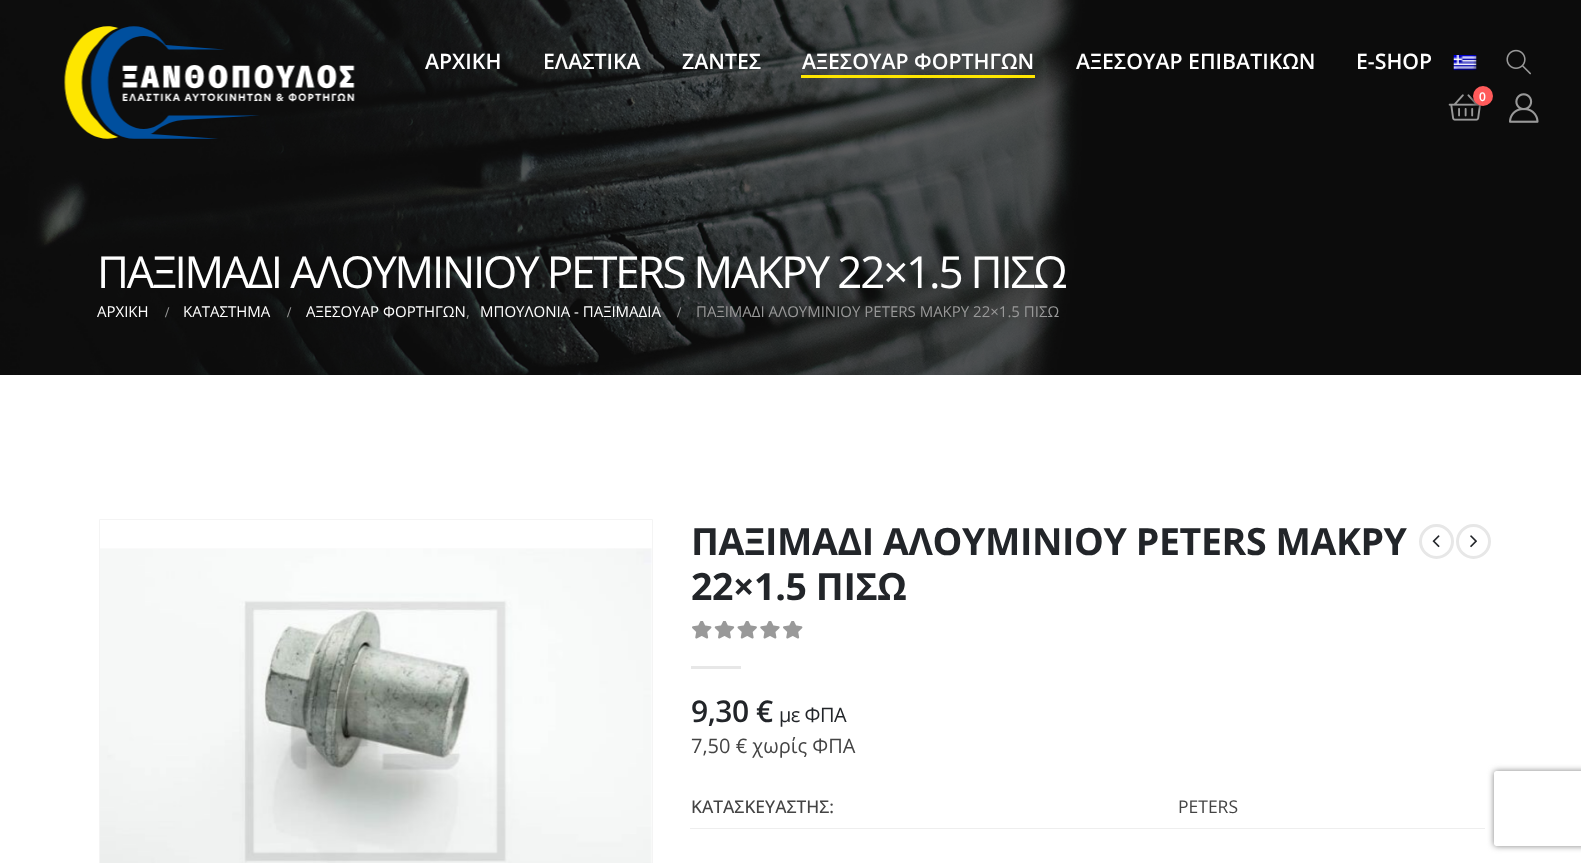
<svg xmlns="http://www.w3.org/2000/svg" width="1581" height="863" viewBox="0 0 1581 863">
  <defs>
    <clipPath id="clip1"><path d="M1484 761H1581V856H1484ZM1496.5 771H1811.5C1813 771 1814 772 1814 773.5V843.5C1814 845 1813 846 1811.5 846H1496.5C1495 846 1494 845 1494 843.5V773.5C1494 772 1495 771 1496.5 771Z" clip-rule="evenodd"/></clipPath>
  </defs>
  <rect width="100%" height="100%" fill="#fff"/>
  <image x="0" y="0" width="1581" height="375" href="img/6.png"/>
  <image x="64" y="26" width="291" height="113" href="img/1.png"/>
  <path d="M801 75h234v3H801z" fill="#fee600"/>
  <image x="1453" y="55" width="24" height="16" href="img/2.png"/>
  <image x="1506" y="49" width="25" height="26" href="img/3.png"/>
  <image x="1448" y="94" width="35" height="27" href="img/4.png"/>
  <rect x="1471" y="88" width="20" height="20" rx="10" fill="#0000004d" filter="blur(1px)"/>
  <circle cx="1483" cy="96" r="10" fill="#ff5b5b"/>
  <image x="1509" y="93" width="30" height="30" href="img/5.png"/>
  <path d="M99.5 519.5h553v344H99.5z" fill="none" stroke="#f4f4f4"/>
  <image x="100" y="548" width="552" height="315" href="img/7.png"/>
  <circle cx="1436.5" cy="541.5" r="16" fill="none" stroke="#e7e7e7" stroke-width="3"/>
  <image x="1432" y="535" width="8" height="13" href="img/8.png"/>
  <circle cx="1473.5" cy="541.5" r="16" fill="none" stroke="#e7e7e7" stroke-width="3"/>
  <image x="1470" y="535" width="7" height="13" href="img/9.png"/>
  <image x="692" y="621" width="111" height="18" href="img/10.png"/>
  <path d="M691 666h50v3H691z" fill="#e7e7e7"/>
  <path d="M690 828h795v1H690z" fill="#eee"/>
  <g clip-path="url(#clip1)">
    <rect x="1494" y="771" width="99" height="75" rx="2.5" fill="#808080" filter="blur(3px)"/>
  </g>
  <g font-family="Open Sans" font-size="21.25" font-weight="600" fill="#fff">
    <text x="425" y="69">ΑΡΧΙΚΗ</text>
    <text x="543" y="69">ΕΛΑΣΤΙΚΑ</text>
    <text x="682" y="69">ΖΑΝΤΕΣ</text>
    <text x="802" y="69">ΑΞΕΣΟΥΑΡ ΦΟΡΤΗΓΩΝ</text>
    <text x="1076" y="69">ΑΞΕΣΟΥΑΡ ΕΠΙΒΑΤΙΚΩΝ</text>
    <text x="1356" y="69">E-SHOP</text>
  </g>
  <text x="1479" y="101" font-family="Open Sans" font-size="12" font-weight="600" fill="#fff">0</text>
  <text x="97" y="288" font-family="Open Sans" font-size="44" letter-spacing="-2.2" fill="#fff">ΠΑΞΙΜΑΔΙ ΑΛΟΥΜΙΝΙΟΥ PETERS ΜΑΚΡΥ 22×1.5 ΠΙΣΩ</text>
  <text x="97" y="317" font-family="Open Sans" font-size="15" fill="#fff">ΑΡΧΙΚΗ</text>
  <text x="165" y="317" font-family="Liberation Serif" font-size="15" font-weight="bold" fill="#999">/</text>
  <text x="183" y="317" font-family="Open Sans" font-size="15" fill="#fff">ΚΑΤΑΣΤΗΜΑ</text>
  <text x="287" y="317" font-family="Liberation Serif" font-size="15" font-weight="bold" fill="#999">/</text>
  <text x="306" y="317" font-family="Open Sans" font-size="15" fill="#fff">ΑΞΕΣΟΥΑΡ ΦΟΡΤΗΓΩΝ</text>
  <text x="466" y="317" font-family="Open Sans" font-size="15" fill="#999">,</text>
  <text x="480" y="317" font-family="Open Sans" font-size="15" fill="#fff">ΜΠΟΥΛΟΝΙΑ - ΠΑΞΙΜΑΔΙΑ</text>
  <text x="677" y="317" font-family="Liberation Serif" font-size="15" font-weight="bold" fill="#999">/</text>
  <text x="696" y="317" font-family="Open Sans" font-size="15" fill="#999">ΠΑΞΙΜΑΔΙ ΑΛΟΥΜΙΝΙΟΥ PETERS ΜΑΚΡΥ 22×1.5 ΠΙΣΩ</text>
  <g font-family="Open Sans" font-size="37.5" font-weight="bold" letter-spacing="-0.4" fill="#222529">
    <text x="691" y="555">ΠΑΞΙΜΑΔΙ ΑΛΟΥΜΙΝΙΟΥ PETERS ΜΑΚΡΥ</text>
    <text x="691" y="600">22×1.5 ΠΙΣΩ</text>
  </g>
  <text x="691" y="722" font-family="Open Sans" font-size="30" font-weight="600" letter-spacing="-0.5" fill="#222529">9,30 €</text>
  <text x="779" y="722" font-family="Open Sans" font-size="20" letter-spacing="-0.5" fill="#222529">με ΦΠΑ</text>
  <text x="691" y="753" font-family="Open Sans" font-size="20" fill="#444">7,50 € χωρίς ΦΠΑ</text>
  <text x="691" y="813" font-family="Open Sans" font-size="17.5" font-weight="500" fill="#444">ΚΑΤΑΣΚΕΥΑΣΤΗΣ:</text>
  <text x="1178" y="813" font-family="Open Sans" font-size="17.5" fill="#444">PETERS</text>
</svg>
